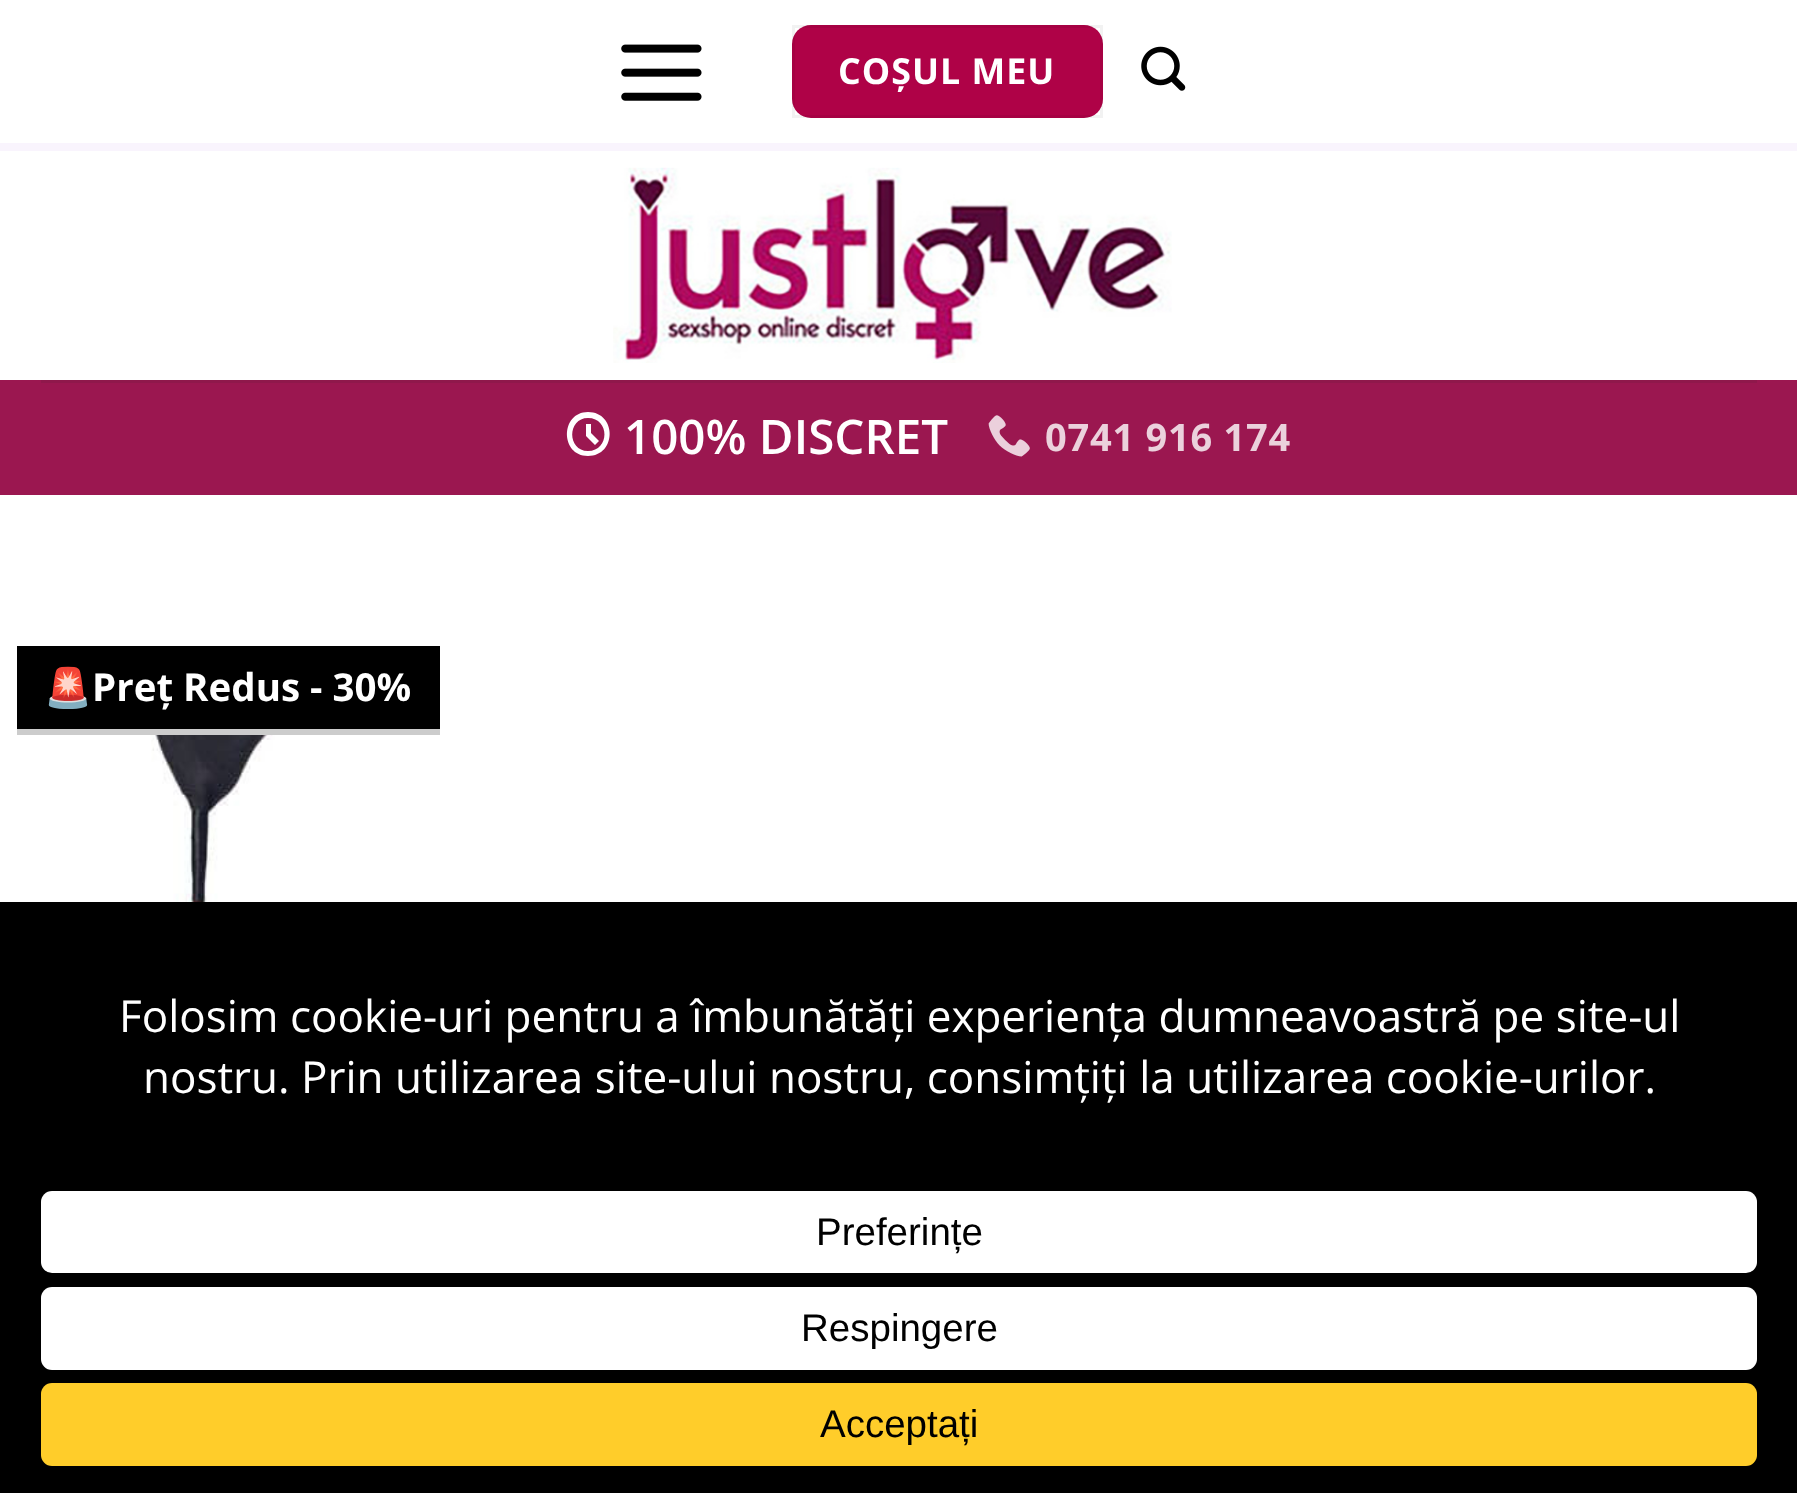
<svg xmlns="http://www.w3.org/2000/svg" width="1797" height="1493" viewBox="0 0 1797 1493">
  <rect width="100%" height="100%" fill="#fff"/>
  <path d="M0 143h1797v8H0z" fill="#f9f4fd"/>
  <image x="621" y="44" width="81" height="57" href="img/1.png"/>
  <rect x="792" y="25" width="311" height="93" rx="19" fill="#af0247"/>
  <path d="M793.5 26.5h308v90H793.5z" fill="none" stroke="#0000000d" stroke-width="3"/>
  <image x="1141" y="46" width="45" height="45" href="img/2.png"/>
  <image x="613" y="167" width="559" height="196" href="img/3.png"/>
  <path d="M0 380h1797v115H0z" fill="#9b1750"/>
  <path d="M41 380h1716v3H41z" fill="#8f184b"/>
  <path d="M595 445L586 436V424H591V433L599 441ZM588 412C560 412 560 456 588 456C617 456 617 412 588 412ZM588 451C567 451 567 418 588 418C610 418 610 451 588 451Z" fill="#fff"/>
  <image x="988" y="415" width="42" height="42" href="img/4.png"/>
  <path d="M17 646h423v83H17z" fill="#000"/>
  <path d="M17 729h423v6H17z" fill="#ccc"/>
  <image x="141" y="735" width="134" height="167" href="img/5.png"/>
  <path d="M0 902h1797v591H0z" fill="#000"/>
  <rect x="41" y="1191" width="1716" height="82" rx="11" fill="#fff"/>
  <rect x="41" y="1287" width="1716" height="83" rx="11" fill="#fff"/>
  <rect x="41" y="1383" width="1716" height="83" rx="11" fill="#ffcd2a"/>
  <text x="838" y="84" font-family="Open Sans" font-size="35.75" font-weight="bold" letter-spacing="1" fill="#fff">COȘUL MEU</text>
  <text x="624" y="454" font-family="Open Sans" font-size="47.5" font-weight="600" fill="#fff">100% DISCRET</text>
  <text x="1045" y="451" font-family="Open Sans" font-size="38" font-weight="bold" letter-spacing="0.75" fill="#ebd1dc">0741 916 174</text>
  <text x="44" y="701" font-family="Noto Color Emoji" font-size="38.5" font-weight="bold" fill="#fff">🚨</text>
  <text x="92" y="701" font-family="Open Sans" font-size="38.5" font-weight="bold" fill="#fff">Preț Redus - 30%</text>
  <g font-family="Open Sans" font-size="44" fill="#fff">
    <text x="119" y="1032">Folosim cookie-uri pentru a îmbunătăți experiența dumneavoastră pe site-ul</text>
    <text x="143" y="1093">nostru. Prin utilizarea site-ului nostru, consimțiți la utilizarea cookie-urilor.</text>
  </g>
  <g font-family="Liberation Sans" font-size="38.5" fill="#000">
    <text x="816" y="1245">Preferințe</text>
    <text x="801" y="1341">Respingere</text>
    <text x="820" y="1437">Acceptați</text>
  </g>
</svg>
